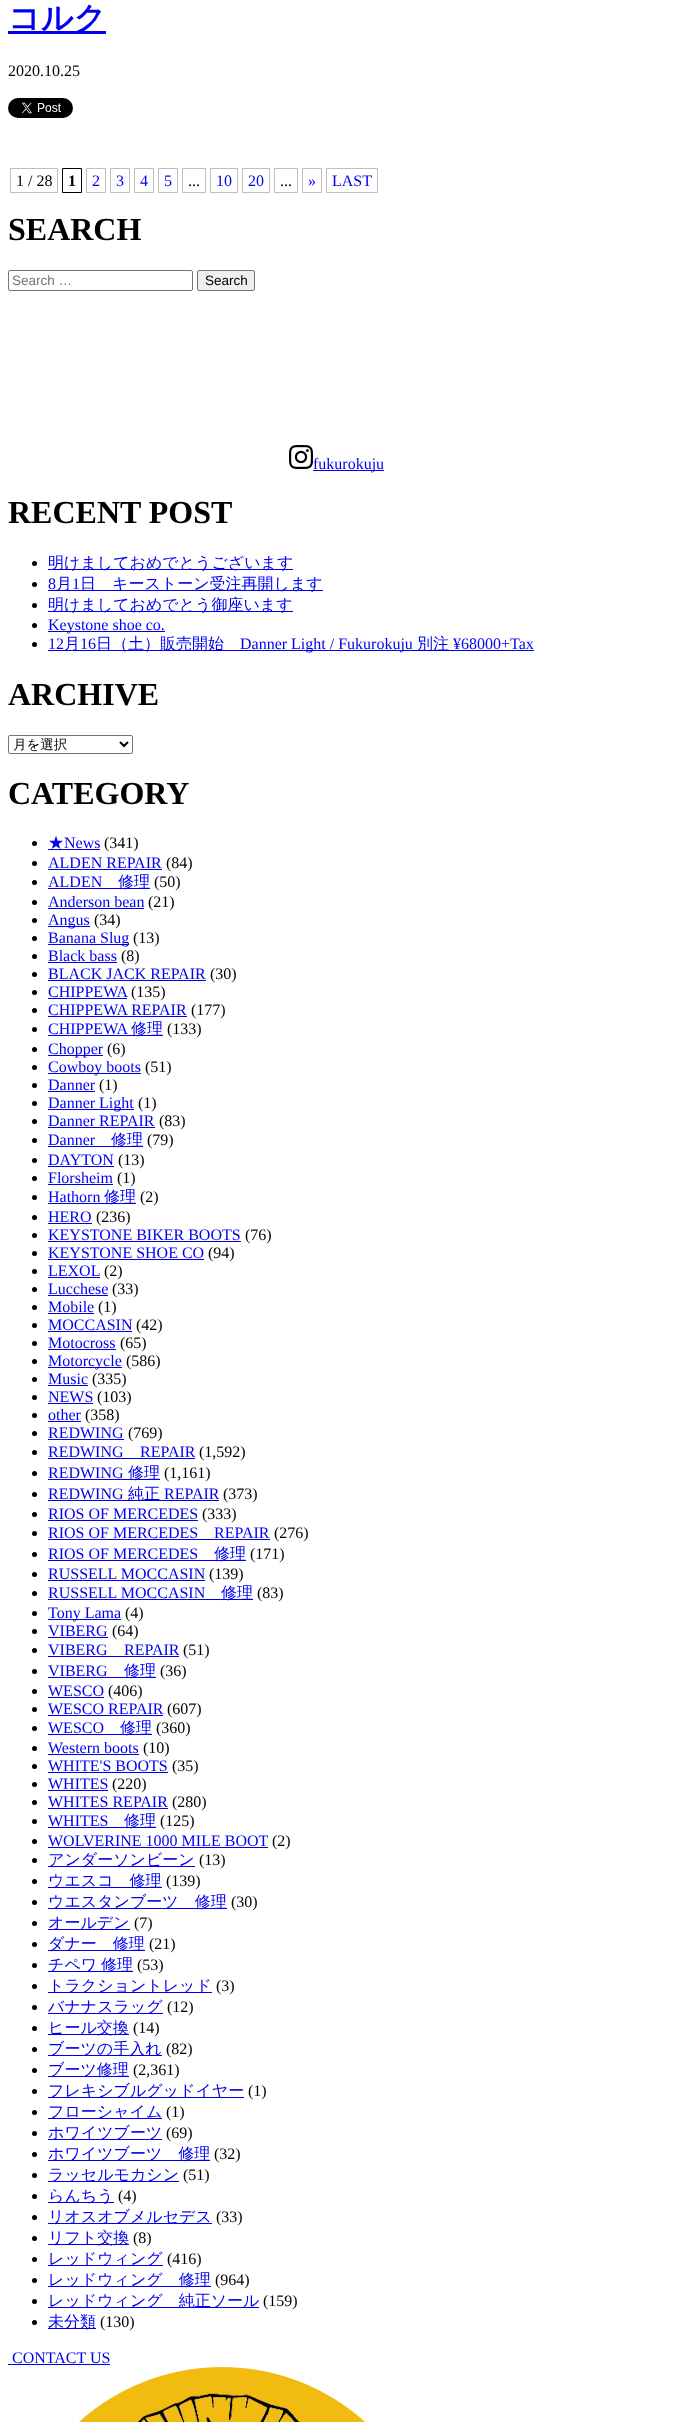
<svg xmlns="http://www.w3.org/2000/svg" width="673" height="2422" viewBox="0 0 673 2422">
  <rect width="100%" height="100%" fill="#fff"/>
  <path d="M8 31h98v3H8z" fill="#00e"/>
  <image x="8" y="98" width="65" height="20" href="img/1.png"/>
  <path d="M10.5 168.5h47v24H10.5z" fill="none" stroke="#bfbfbf"/>
  <path d="M62.5 168.5h19v24H62.5z" fill="none" stroke="#000"/>
  <path d="M86.5 168.5h19v24H86.5z" fill="none" stroke="#bfbfbf"/>
  <path d="M110.5 168.5h19v24H110.5z" fill="none" stroke="#bfbfbf"/>
  <path d="M134.5 168.5h19v24H134.5z" fill="none" stroke="#bfbfbf"/>
  <path d="M158.5 168.5h19v24H158.5z" fill="none" stroke="#bfbfbf"/>
  <path d="M182.5 168.5h23v24H182.5z" fill="none" stroke="#bfbfbf"/>
  <path d="M210.5 168.5h27v24H210.5z" fill="none" stroke="#bfbfbf"/>
  <path d="M242.5 168.5h27v24H242.5z" fill="none" stroke="#bfbfbf"/>
  <path d="M274.5 168.5h23v24H274.5z" fill="none" stroke="#bfbfbf"/>
  <path d="M302.5 168.5h19v24H302.5z" fill="none" stroke="#bfbfbf"/>
  <path d="M326.5 168.5h51v24H326.5z" fill="none" stroke="#bfbfbf"/>
  <rect x="8.5" y="270.5" width="184" height="20" rx="1.5" fill="none" stroke="#767676"/>
  <rect x="197.5" y="270.5" width="57" height="20" rx="1.5" fill="#efefef" stroke="#767676"/>
  <image x="289" y="445" width="24" height="24" href="img/2.png"/>
  <path d="M313 470h71v1H313z" fill="#00e"/>
  <circle cx="34.5" cy="563.5" r="2.5" fill="#000"/>
  <path d="M48 569h245v1H48z" fill="#00e"/>
  <circle cx="34.5" cy="584.5" r="2.5" fill="#000"/>
  <path d="M48 590h275v1H48z" fill="#00e"/>
  <circle cx="34.5" cy="605.5" r="2.5" fill="#000"/>
  <path d="M48 611h245v1H48z" fill="#00e"/>
  <circle cx="34.5" cy="625.5" r="2.5" fill="#000"/>
  <path d="M48 631h117v1H48z" fill="#00e"/>
  <circle cx="34.5" cy="644.5" r="2.5" fill="#000"/>
  <path d="M48 650h486v1H48z" fill="#00e"/>
  <rect x="8.5" y="735.5" width="124" height="18" rx="1.5" fill="none" stroke="#767676"/>
  <path d="M120 742L124 746L128 742" fill="none" stroke="#000" stroke-width="2"/>
  <circle cx="34.5" cy="843.5" r="2.5" fill="#000"/>
  <path d="M48 849h52v1H48z" fill="#00e"/>
  <circle cx="34.5" cy="863.5" r="2.5" fill="#000"/>
  <path d="M48 869h114v1H48z" fill="#00e"/>
  <circle cx="34.5" cy="882.5" r="2.5" fill="#000"/>
  <path d="M48 888h102v1H48z" fill="#00e"/>
  <circle cx="34.5" cy="902.5" r="2.5" fill="#000"/>
  <path d="M48 908h96v1H48z" fill="#00e"/>
  <circle cx="34.5" cy="920.5" r="2.5" fill="#000"/>
  <path d="M48 926h42v1H48z" fill="#00e"/>
  <circle cx="34.5" cy="938.5" r="2.5" fill="#000"/>
  <path d="M48 944h81v1H48z" fill="#00e"/>
  <circle cx="34.5" cy="956.5" r="2.5" fill="#000"/>
  <path d="M48 962h69v1H48z" fill="#00e"/>
  <circle cx="34.5" cy="974.5" r="2.5" fill="#000"/>
  <path d="M48 980h158v1H48z" fill="#00e"/>
  <circle cx="34.5" cy="992.5" r="2.5" fill="#000"/>
  <path d="M48 998h79v1H48z" fill="#00e"/>
  <circle cx="34.5" cy="1010.5" r="2.5" fill="#000"/>
  <path d="M48 1016h139v1H48z" fill="#00e"/>
  <circle cx="34.5" cy="1029.5" r="2.5" fill="#000"/>
  <path d="M48 1035h115v1H48z" fill="#00e"/>
  <circle cx="34.5" cy="1049.5" r="2.5" fill="#000"/>
  <path d="M48 1055h55v1H48z" fill="#00e"/>
  <circle cx="34.5" cy="1067.5" r="2.5" fill="#000"/>
  <path d="M48 1073h93v1H48z" fill="#00e"/>
  <circle cx="34.5" cy="1085.5" r="2.5" fill="#000"/>
  <path d="M48 1091h47v1H48z" fill="#00e"/>
  <circle cx="34.5" cy="1103.5" r="2.5" fill="#000"/>
  <path d="M48 1109h86v1H48z" fill="#00e"/>
  <circle cx="34.5" cy="1121.5" r="2.5" fill="#000"/>
  <path d="M48 1127h107v1H48z" fill="#00e"/>
  <circle cx="34.5" cy="1140.5" r="2.5" fill="#000"/>
  <path d="M48 1146h95v1H48z" fill="#00e"/>
  <circle cx="34.5" cy="1160.5" r="2.5" fill="#000"/>
  <path d="M48 1166h66v1H48z" fill="#00e"/>
  <circle cx="34.5" cy="1178.5" r="2.5" fill="#000"/>
  <path d="M48 1184h65v1H48z" fill="#00e"/>
  <circle cx="34.5" cy="1197.5" r="2.5" fill="#000"/>
  <path d="M48 1203h88v1H48z" fill="#00e"/>
  <circle cx="34.5" cy="1217.5" r="2.5" fill="#000"/>
  <path d="M48 1223h44v1H48z" fill="#00e"/>
  <circle cx="34.5" cy="1235.5" r="2.5" fill="#000"/>
  <path d="M48 1241h193v1H48z" fill="#00e"/>
  <circle cx="34.5" cy="1253.5" r="2.5" fill="#000"/>
  <path d="M48 1259h156v1H48z" fill="#00e"/>
  <circle cx="34.5" cy="1271.5" r="2.5" fill="#000"/>
  <path d="M48 1277h52v1H48z" fill="#00e"/>
  <circle cx="34.5" cy="1289.5" r="2.5" fill="#000"/>
  <path d="M48 1295h60v1H48z" fill="#00e"/>
  <circle cx="34.5" cy="1307.5" r="2.5" fill="#000"/>
  <path d="M48 1313h46v1H48z" fill="#00e"/>
  <circle cx="34.5" cy="1325.5" r="2.5" fill="#000"/>
  <path d="M48 1331h84v1H48z" fill="#00e"/>
  <circle cx="34.5" cy="1343.5" r="2.5" fill="#000"/>
  <path d="M48 1349h68v1H48z" fill="#00e"/>
  <circle cx="34.5" cy="1361.5" r="2.5" fill="#000"/>
  <path d="M48 1367h74v1H48z" fill="#00e"/>
  <circle cx="34.5" cy="1379.5" r="2.5" fill="#000"/>
  <path d="M48 1385h40v1H48z" fill="#00e"/>
  <circle cx="34.5" cy="1397.5" r="2.5" fill="#000"/>
  <path d="M48 1403h45v1H48z" fill="#00e"/>
  <circle cx="34.5" cy="1415.5" r="2.5" fill="#000"/>
  <path d="M48 1421h33v1H48z" fill="#00e"/>
  <circle cx="34.5" cy="1433.5" r="2.5" fill="#000"/>
  <path d="M48 1439h76v1H48z" fill="#00e"/>
  <circle cx="34.5" cy="1452.5" r="2.5" fill="#000"/>
  <path d="M48 1458h147v1H48z" fill="#00e"/>
  <circle cx="34.5" cy="1473.5" r="2.5" fill="#000"/>
  <path d="M48 1479h112v1H48z" fill="#00e"/>
  <circle cx="34.5" cy="1494.5" r="2.5" fill="#000"/>
  <path d="M48 1500h171v1H48z" fill="#00e"/>
  <circle cx="34.5" cy="1514.5" r="2.5" fill="#000"/>
  <path d="M48 1520h150v1H48z" fill="#00e"/>
  <circle cx="34.5" cy="1533.5" r="2.5" fill="#000"/>
  <path d="M48 1539h222v1H48z" fill="#00e"/>
  <circle cx="34.5" cy="1554.5" r="2.5" fill="#000"/>
  <path d="M48 1560h198v1H48z" fill="#00e"/>
  <circle cx="34.5" cy="1574.5" r="2.5" fill="#000"/>
  <path d="M48 1580h157v1H48z" fill="#00e"/>
  <circle cx="34.5" cy="1593.5" r="2.5" fill="#000"/>
  <path d="M48 1599h205v1H48z" fill="#00e"/>
  <circle cx="34.5" cy="1613.5" r="2.5" fill="#000"/>
  <path d="M48 1619h73v1H48z" fill="#00e"/>
  <circle cx="34.5" cy="1631.5" r="2.5" fill="#000"/>
  <path d="M48 1637h60v1H48z" fill="#00e"/>
  <circle cx="34.5" cy="1650.5" r="2.5" fill="#000"/>
  <path d="M48 1656h131v1H48z" fill="#00e"/>
  <circle cx="34.5" cy="1671.5" r="2.5" fill="#000"/>
  <path d="M48 1677h108v1H48z" fill="#00e"/>
  <circle cx="34.5" cy="1691.5" r="2.5" fill="#000"/>
  <path d="M48 1697h56v1H48z" fill="#00e"/>
  <circle cx="34.5" cy="1709.5" r="2.5" fill="#000"/>
  <path d="M48 1715h115v1H48z" fill="#00e"/>
  <circle cx="34.5" cy="1728.5" r="2.5" fill="#000"/>
  <path d="M48 1734h104v1H48z" fill="#00e"/>
  <circle cx="34.5" cy="1748.5" r="2.5" fill="#000"/>
  <path d="M48 1754h91v1H48z" fill="#00e"/>
  <circle cx="34.5" cy="1766.5" r="2.5" fill="#000"/>
  <path d="M48 1772h120v1H48z" fill="#00e"/>
  <circle cx="34.5" cy="1784.5" r="2.5" fill="#000"/>
  <path d="M48 1790h60v1H48z" fill="#00e"/>
  <circle cx="34.5" cy="1802.5" r="2.5" fill="#000"/>
  <path d="M48 1808h120v1H48z" fill="#00e"/>
  <circle cx="34.5" cy="1821.5" r="2.5" fill="#000"/>
  <path d="M48 1827h108v1H48z" fill="#00e"/>
  <circle cx="34.5" cy="1841.5" r="2.5" fill="#000"/>
  <path d="M48 1847h220v1H48z" fill="#00e"/>
  <circle cx="34.5" cy="1860.5" r="2.5" fill="#000"/>
  <path d="M48 1866h147v1H48z" fill="#00e"/>
  <circle cx="34.5" cy="1881.5" r="2.5" fill="#000"/>
  <path d="M48 1887h114v1H48z" fill="#00e"/>
  <circle cx="34.5" cy="1902.5" r="2.5" fill="#000"/>
  <path d="M48 1908h179v1H48z" fill="#00e"/>
  <circle cx="34.5" cy="1923.5" r="2.5" fill="#000"/>
  <path d="M48 1929h82v1H48z" fill="#00e"/>
  <circle cx="34.5" cy="1944.5" r="2.5" fill="#000"/>
  <path d="M48 1950h97v1H48z" fill="#00e"/>
  <circle cx="34.5" cy="1965.5" r="2.5" fill="#000"/>
  <path d="M48 1971h85v1H48z" fill="#00e"/>
  <circle cx="34.5" cy="1986.5" r="2.5" fill="#000"/>
  <path d="M48 1992h164v1H48z" fill="#00e"/>
  <circle cx="34.5" cy="2007.5" r="2.5" fill="#000"/>
  <path d="M48 2013h115v1H48z" fill="#00e"/>
  <circle cx="34.5" cy="2028.5" r="2.5" fill="#000"/>
  <path d="M48 2034h81v1H48z" fill="#00e"/>
  <circle cx="34.5" cy="2049.5" r="2.5" fill="#000"/>
  <path d="M48 2055h114v1H48z" fill="#00e"/>
  <circle cx="34.5" cy="2070.5" r="2.5" fill="#000"/>
  <path d="M48 2076h81v1H48z" fill="#00e"/>
  <circle cx="34.5" cy="2091.5" r="2.5" fill="#000"/>
  <path d="M48 2097h196v1H48z" fill="#00e"/>
  <circle cx="34.5" cy="2112.5" r="2.5" fill="#000"/>
  <path d="M48 2118h114v1H48z" fill="#00e"/>
  <circle cx="34.5" cy="2133.5" r="2.5" fill="#000"/>
  <path d="M48 2139h114v1H48z" fill="#00e"/>
  <circle cx="34.5" cy="2154.5" r="2.5" fill="#000"/>
  <path d="M48 2160h162v1H48z" fill="#00e"/>
  <circle cx="34.5" cy="2175.5" r="2.5" fill="#000"/>
  <path d="M48 2181h131v1H48z" fill="#00e"/>
  <circle cx="34.5" cy="2196.5" r="2.5" fill="#000"/>
  <path d="M48 2202h66v1H48z" fill="#00e"/>
  <circle cx="34.5" cy="2217.5" r="2.5" fill="#000"/>
  <path d="M48 2223h164v1H48z" fill="#00e"/>
  <circle cx="34.5" cy="2238.5" r="2.5" fill="#000"/>
  <path d="M48 2244h81v1H48z" fill="#00e"/>
  <circle cx="34.5" cy="2259.5" r="2.5" fill="#000"/>
  <path d="M48 2265h115v1H48z" fill="#00e"/>
  <circle cx="34.5" cy="2280.5" r="2.5" fill="#000"/>
  <path d="M48 2286h163v1H48z" fill="#00e"/>
  <circle cx="34.5" cy="2301.5" r="2.5" fill="#000"/>
  <path d="M48 2307h211v1H48z" fill="#00e"/>
  <circle cx="34.5" cy="2322.5" r="2.5" fill="#000"/>
  <path d="M48 2328h48v1H48z" fill="#00e"/>
  <path d="M8 2364h102v1H8z" fill="#00e"/>
  <image x="79" y="2367" width="286" height="55" href="img/3.png"/>
  <text x="8" y="29" font-family="WenQuanYi Zen Hei" font-size="32" font-weight="bold" fill="#00e">コルク</text>
  <g font-family="Liberation Serif" font-size="16" fill="#000">
    <text x="8" y="76">2020.10.25</text>
    <text x="16" y="186">1 / 28</text>
  </g>
  <text x="68" y="186" font-family="Liberation Serif" font-size="16" font-weight="bold" fill="#000">1</text>
  <g font-family="Liberation Serif" font-size="16" fill="#00e">
    <text x="92" y="186">2</text>
    <text x="116" y="186">3</text>
    <text x="140" y="186">4</text>
    <text x="164" y="186">5</text>
  </g>
  <text x="188" y="186" font-family="Liberation Serif" font-size="16" fill="#000">...</text>
  <g font-family="Liberation Serif" font-size="16" fill="#00e">
    <text x="216" y="186">10</text>
    <text x="248" y="186">20</text>
  </g>
  <text x="280" y="186" font-family="Liberation Serif" font-size="16" fill="#000">...</text>
  <g font-family="Liberation Serif" font-size="16" fill="#00e">
    <text x="308" y="186">»</text>
    <text x="332" y="186">LAST</text>
  </g>
  <text x="8" y="240" font-family="Liberation Serif" font-size="32" font-weight="bold" fill="#000">SEARCH</text>
  <text x="12" y="285" font-family="Liberation Sans" font-size="13.5" fill="#757575">Search …</text>
  <text x="205" y="285" font-family="Liberation Sans" font-size="13.5" fill="#000">Search</text>
  <text x="313" y="469" font-family="Liberation Serif" font-size="16" fill="#00e">fukurokuju</text>
  <text x="8" y="523" font-family="Liberation Serif" font-size="32" font-weight="bold" fill="#000">RECENT POST</text>
  <text x="48" y="568" font-family="WenQuanYi Zen Hei" font-size="16" font-weight="500" fill="#00e">明けましておめでとうございます</text>
  <text x="48" y="589" font-family="Liberation Serif" font-size="16" fill="#00e">8</text>
  <text x="56" y="589" font-family="WenQuanYi Zen Hei" font-size="16" font-weight="500" fill="#00e">月</text>
  <text x="72" y="589" font-family="Liberation Serif" font-size="16" fill="#00e">1</text>
  <g font-family="WenQuanYi Zen Hei" font-size="16" font-weight="500" fill="#00e">
    <text x="80" y="589">日　キーストーン受注再開します</text>
    <text x="48" y="610">明けましておめでとう御座います</text>
  </g>
  <g font-family="Liberation Serif" font-size="16" fill="#00e">
    <text x="48" y="630">Keystone shoe co.</text>
    <text x="48" y="649">12</text>
  </g>
  <text x="64" y="649" font-family="WenQuanYi Zen Hei" font-size="16" font-weight="500" fill="#00e">月</text>
  <text x="80" y="649" font-family="Liberation Serif" font-size="16" fill="#00e">16</text>
  <text x="96" y="649" font-family="WenQuanYi Zen Hei" font-size="16" font-weight="500" fill="#00e">日（土）販売開始</text>
  <text x="240" y="649" font-family="Liberation Serif" font-size="16" fill="#00e">Danner Light / Fukurokuju</text>
  <text x="417" y="649" font-family="WenQuanYi Zen Hei" font-size="16" font-weight="500" fill="#00e">別注</text>
  <text x="453" y="649" font-family="Liberation Serif" font-size="16" fill="#00e">¥68000+Tax</text>
  <text x="8" y="705" font-family="Liberation Serif" font-size="32" font-weight="bold" fill="#000">ARCHIVE</text>
  <text x="13" y="749" font-family="WenQuanYi Zen Hei" font-size="13.5" font-weight="500" fill="#000">月を選択</text>
  <text x="8" y="804" font-family="Liberation Serif" font-size="32" font-weight="bold" fill="#000">CATEGORY</text>
  <text x="48" y="848" font-family="WenQuanYi Zen Hei" font-size="16" font-weight="500" fill="#00e">★</text>
  <text x="64" y="848" font-family="Liberation Serif" font-size="16" fill="#00e">News</text>
  <text x="104" y="848" font-family="Liberation Serif" font-size="16" fill="#000">(341)</text>
  <text x="48" y="868" font-family="Liberation Serif" font-size="16" fill="#00e">ALDEN REPAIR</text>
  <text x="166" y="868" font-family="Liberation Serif" font-size="16" fill="#000">(84)</text>
  <text x="48" y="887" font-family="Liberation Serif" font-size="16" fill="#00e">ALDEN</text>
  <text x="118" y="887" font-family="WenQuanYi Zen Hei" font-size="16" font-weight="500" fill="#00e">修理</text>
  <text x="154" y="887" font-family="Liberation Serif" font-size="16" fill="#000">(50)</text>
  <text x="48" y="907" font-family="Liberation Serif" font-size="16" fill="#00e">Anderson bean</text>
  <text x="148" y="907" font-family="Liberation Serif" font-size="16" fill="#000">(21)</text>
  <text x="48" y="925" font-family="Liberation Serif" font-size="16" fill="#00e">Angus</text>
  <text x="94" y="925" font-family="Liberation Serif" font-size="16" fill="#000">(34)</text>
  <text x="48" y="943" font-family="Liberation Serif" font-size="16" fill="#00e">Banana Slug</text>
  <text x="133" y="943" font-family="Liberation Serif" font-size="16" fill="#000">(13)</text>
  <text x="48" y="961" font-family="Liberation Serif" font-size="16" fill="#00e">Black bass</text>
  <text x="121" y="961" font-family="Liberation Serif" font-size="16" fill="#000">(8)</text>
  <text x="48" y="979" font-family="Liberation Serif" font-size="16" fill="#00e">BLACK JACK REPAIR</text>
  <text x="210" y="979" font-family="Liberation Serif" font-size="16" fill="#000">(30)</text>
  <text x="48" y="997" font-family="Liberation Serif" font-size="16" fill="#00e">CHIPPEWA</text>
  <text x="131" y="997" font-family="Liberation Serif" font-size="16" fill="#000">(135)</text>
  <text x="48" y="1015" font-family="Liberation Serif" font-size="16" fill="#00e">CHIPPEWA REPAIR</text>
  <text x="191" y="1015" font-family="Liberation Serif" font-size="16" fill="#000">(177)</text>
  <text x="48" y="1034" font-family="Liberation Serif" font-size="16" fill="#00e">CHIPPEWA</text>
  <text x="131" y="1034" font-family="WenQuanYi Zen Hei" font-size="16" font-weight="500" fill="#00e">修理</text>
  <text x="167" y="1034" font-family="Liberation Serif" font-size="16" fill="#000">(133)</text>
  <text x="48" y="1054" font-family="Liberation Serif" font-size="16" fill="#00e">Chopper</text>
  <text x="107" y="1054" font-family="Liberation Serif" font-size="16" fill="#000">(6)</text>
  <text x="48" y="1072" font-family="Liberation Serif" font-size="16" fill="#00e">Cowboy boots</text>
  <text x="145" y="1072" font-family="Liberation Serif" font-size="16" fill="#000">(51)</text>
  <text x="48" y="1090" font-family="Liberation Serif" font-size="16" fill="#00e">Danner</text>
  <text x="99" y="1090" font-family="Liberation Serif" font-size="16" fill="#000">(1)</text>
  <text x="48" y="1108" font-family="Liberation Serif" font-size="16" fill="#00e">Danner Light</text>
  <text x="138" y="1108" font-family="Liberation Serif" font-size="16" fill="#000">(1)</text>
  <text x="48" y="1126" font-family="Liberation Serif" font-size="16" fill="#00e">Danner REPAIR</text>
  <text x="159" y="1126" font-family="Liberation Serif" font-size="16" fill="#000">(83)</text>
  <text x="48" y="1145" font-family="Liberation Serif" font-size="16" fill="#00e">Danner</text>
  <text x="111" y="1145" font-family="WenQuanYi Zen Hei" font-size="16" font-weight="500" fill="#00e">修理</text>
  <text x="147" y="1145" font-family="Liberation Serif" font-size="16" fill="#000">(79)</text>
  <text x="48" y="1165" font-family="Liberation Serif" font-size="16" fill="#00e">DAYTON</text>
  <text x="118" y="1165" font-family="Liberation Serif" font-size="16" fill="#000">(13)</text>
  <text x="48" y="1183" font-family="Liberation Serif" font-size="16" fill="#00e">Florsheim</text>
  <text x="117" y="1183" font-family="Liberation Serif" font-size="16" fill="#000">(1)</text>
  <text x="48" y="1202" font-family="Liberation Serif" font-size="16" fill="#00e">Hathorn</text>
  <text x="104" y="1202" font-family="WenQuanYi Zen Hei" font-size="16" font-weight="500" fill="#00e">修理</text>
  <text x="140" y="1202" font-family="Liberation Serif" font-size="16" fill="#000">(2)</text>
  <text x="48" y="1222" font-family="Liberation Serif" font-size="16" fill="#00e">HERO</text>
  <text x="96" y="1222" font-family="Liberation Serif" font-size="16" fill="#000">(236)</text>
  <text x="48" y="1240" font-family="Liberation Serif" font-size="16" fill="#00e">KEYSTONE BIKER BOOTS</text>
  <text x="245" y="1240" font-family="Liberation Serif" font-size="16" fill="#000">(76)</text>
  <text x="48" y="1258" font-family="Liberation Serif" font-size="16" fill="#00e">KEYSTONE SHOE CO</text>
  <text x="208" y="1258" font-family="Liberation Serif" font-size="16" fill="#000">(94)</text>
  <text x="48" y="1276" font-family="Liberation Serif" font-size="16" fill="#00e">LEXOL</text>
  <text x="104" y="1276" font-family="Liberation Serif" font-size="16" fill="#000">(2)</text>
  <text x="48" y="1294" font-family="Liberation Serif" font-size="16" fill="#00e">Lucchese</text>
  <text x="112" y="1294" font-family="Liberation Serif" font-size="16" fill="#000">(33)</text>
  <text x="48" y="1312" font-family="Liberation Serif" font-size="16" fill="#00e">Mobile</text>
  <text x="98" y="1312" font-family="Liberation Serif" font-size="16" fill="#000">(1)</text>
  <text x="48" y="1330" font-family="Liberation Serif" font-size="16" fill="#00e">MOCCASIN</text>
  <text x="136" y="1330" font-family="Liberation Serif" font-size="16" fill="#000">(42)</text>
  <text x="48" y="1348" font-family="Liberation Serif" font-size="16" fill="#00e">Motocross</text>
  <text x="120" y="1348" font-family="Liberation Serif" font-size="16" fill="#000">(65)</text>
  <text x="48" y="1366" font-family="Liberation Serif" font-size="16" fill="#00e">Motorcycle</text>
  <text x="126" y="1366" font-family="Liberation Serif" font-size="16" fill="#000">(586)</text>
  <text x="48" y="1384" font-family="Liberation Serif" font-size="16" fill="#00e">Music</text>
  <text x="92" y="1384" font-family="Liberation Serif" font-size="16" fill="#000">(335)</text>
  <text x="48" y="1402" font-family="Liberation Serif" font-size="16" fill="#00e">NEWS</text>
  <text x="97" y="1402" font-family="Liberation Serif" font-size="16" fill="#000">(103)</text>
  <text x="48" y="1420" font-family="Liberation Serif" font-size="16" fill="#00e">other</text>
  <text x="85" y="1420" font-family="Liberation Serif" font-size="16" fill="#000">(358)</text>
  <text x="48" y="1438" font-family="Liberation Serif" font-size="16" fill="#00e">REDWING</text>
  <text x="128" y="1438" font-family="Liberation Serif" font-size="16" fill="#000">(769)</text>
  <g font-family="Liberation Serif" font-size="16" fill="#00e">
    <text x="48" y="1457">REDWING</text>
    <text x="140" y="1457">REPAIR</text>
  </g>
  <text x="199" y="1457" font-family="Liberation Serif" font-size="16" fill="#000">(1,592)</text>
  <text x="48" y="1478" font-family="Liberation Serif" font-size="16" fill="#00e">REDWING</text>
  <text x="128" y="1478" font-family="WenQuanYi Zen Hei" font-size="16" font-weight="500" fill="#00e">修理</text>
  <text x="164" y="1478" font-family="Liberation Serif" font-size="16" fill="#000">(1,161)</text>
  <text x="48" y="1499" font-family="Liberation Serif" font-size="16" fill="#00e">REDWING</text>
  <text x="128" y="1499" font-family="WenQuanYi Zen Hei" font-size="16" font-weight="500" fill="#00e">純正</text>
  <text x="164" y="1499" font-family="Liberation Serif" font-size="16" fill="#00e">REPAIR</text>
  <text x="223" y="1499" font-family="Liberation Serif" font-size="16" fill="#000">(373)</text>
  <text x="48" y="1519" font-family="Liberation Serif" font-size="16" fill="#00e">RIOS OF MERCEDES</text>
  <text x="202" y="1519" font-family="Liberation Serif" font-size="16" fill="#000">(333)</text>
  <g font-family="Liberation Serif" font-size="16" fill="#00e">
    <text x="48" y="1538">RIOS OF MERCEDES</text>
    <text x="214" y="1538">REPAIR</text>
  </g>
  <text x="274" y="1538" font-family="Liberation Serif" font-size="16" fill="#000">(276)</text>
  <text x="48" y="1559" font-family="Liberation Serif" font-size="16" fill="#00e">RIOS OF MERCEDES</text>
  <text x="214" y="1559" font-family="WenQuanYi Zen Hei" font-size="16" font-weight="500" fill="#00e">修理</text>
  <text x="250" y="1559" font-family="Liberation Serif" font-size="16" fill="#000">(171)</text>
  <text x="48" y="1579" font-family="Liberation Serif" font-size="16" fill="#00e">RUSSELL MOCCASIN</text>
  <text x="209" y="1579" font-family="Liberation Serif" font-size="16" fill="#000">(139)</text>
  <text x="48" y="1598" font-family="Liberation Serif" font-size="16" fill="#00e">RUSSELL MOCCASIN</text>
  <text x="221" y="1598" font-family="WenQuanYi Zen Hei" font-size="16" font-weight="500" fill="#00e">修理</text>
  <text x="257" y="1598" font-family="Liberation Serif" font-size="16" fill="#000">(83)</text>
  <text x="48" y="1618" font-family="Liberation Serif" font-size="16" fill="#00e">Tony Lama</text>
  <text x="125" y="1618" font-family="Liberation Serif" font-size="16" fill="#000">(4)</text>
  <text x="48" y="1636" font-family="Liberation Serif" font-size="16" fill="#00e">VIBERG</text>
  <text x="112" y="1636" font-family="Liberation Serif" font-size="16" fill="#000">(64)</text>
  <g font-family="Liberation Serif" font-size="16" fill="#00e">
    <text x="48" y="1655">VIBERG</text>
    <text x="124" y="1655">REPAIR</text>
  </g>
  <text x="183" y="1655" font-family="Liberation Serif" font-size="16" fill="#000">(51)</text>
  <text x="48" y="1676" font-family="Liberation Serif" font-size="16" fill="#00e">VIBERG</text>
  <text x="124" y="1676" font-family="WenQuanYi Zen Hei" font-size="16" font-weight="500" fill="#00e">修理</text>
  <text x="160" y="1676" font-family="Liberation Serif" font-size="16" fill="#000">(36)</text>
  <text x="48" y="1696" font-family="Liberation Serif" font-size="16" fill="#00e">WESCO</text>
  <text x="108" y="1696" font-family="Liberation Serif" font-size="16" fill="#000">(406)</text>
  <text x="48" y="1714" font-family="Liberation Serif" font-size="16" fill="#00e">WESCO REPAIR</text>
  <text x="167" y="1714" font-family="Liberation Serif" font-size="16" fill="#000">(607)</text>
  <text x="48" y="1733" font-family="Liberation Serif" font-size="16" fill="#00e">WESCO</text>
  <text x="120" y="1733" font-family="WenQuanYi Zen Hei" font-size="16" font-weight="500" fill="#00e">修理</text>
  <text x="156" y="1733" font-family="Liberation Serif" font-size="16" fill="#000">(360)</text>
  <text x="48" y="1753" font-family="Liberation Serif" font-size="16" fill="#00e">Western boots</text>
  <text x="143" y="1753" font-family="Liberation Serif" font-size="16" fill="#000">(10)</text>
  <text x="48" y="1771" font-family="Liberation Serif" font-size="16" fill="#00e">WHITE'S BOOTS</text>
  <text x="172" y="1771" font-family="Liberation Serif" font-size="16" fill="#000">(35)</text>
  <text x="48" y="1789" font-family="Liberation Serif" font-size="16" fill="#00e">WHITES</text>
  <text x="112" y="1789" font-family="Liberation Serif" font-size="16" fill="#000">(220)</text>
  <text x="48" y="1807" font-family="Liberation Serif" font-size="16" fill="#00e">WHITES REPAIR</text>
  <text x="172" y="1807" font-family="Liberation Serif" font-size="16" fill="#000">(280)</text>
  <text x="48" y="1826" font-family="Liberation Serif" font-size="16" fill="#00e">WHITES</text>
  <text x="124" y="1826" font-family="WenQuanYi Zen Hei" font-size="16" font-weight="500" fill="#00e">修理</text>
  <text x="160" y="1826" font-family="Liberation Serif" font-size="16" fill="#000">(125)</text>
  <text x="48" y="1846" font-family="Liberation Serif" font-size="16" fill="#00e">WOLVERINE 1000 MILE BOOT</text>
  <text x="272" y="1846" font-family="Liberation Serif" font-size="16" fill="#000">(2)</text>
  <text x="48" y="1865" font-family="WenQuanYi Zen Hei" font-size="16" font-weight="500" fill="#00e">アンダーソンビーン</text>
  <text x="199" y="1865" font-family="Liberation Serif" font-size="16" fill="#000">(13)</text>
  <text x="48" y="1886" font-family="WenQuanYi Zen Hei" font-size="16" font-weight="500" fill="#00e">ウエスコ　修理</text>
  <text x="166" y="1886" font-family="Liberation Serif" font-size="16" fill="#000">(139)</text>
  <text x="48" y="1907" font-family="WenQuanYi Zen Hei" font-size="16" font-weight="500" fill="#00e">ウエスタンブーツ　修理</text>
  <text x="231" y="1907" font-family="Liberation Serif" font-size="16" fill="#000">(30)</text>
  <text x="48" y="1928" font-family="WenQuanYi Zen Hei" font-size="16" font-weight="500" fill="#00e">オールデン</text>
  <text x="134" y="1928" font-family="Liberation Serif" font-size="16" fill="#000">(7)</text>
  <text x="48" y="1949" font-family="WenQuanYi Zen Hei" font-size="16" font-weight="500" fill="#00e">ダナー　修理</text>
  <text x="149" y="1949" font-family="Liberation Serif" font-size="16" fill="#000">(21)</text>
  <text x="48" y="1970" word-spacing="-1" font-family="WenQuanYi Zen Hei" font-size="16" font-weight="500" fill="#00e">チペワ 修理</text>
  <text x="137" y="1970" font-family="Liberation Serif" font-size="16" fill="#000">(53)</text>
  <text x="48" y="1991" font-family="WenQuanYi Zen Hei" font-size="16" font-weight="500" fill="#00e">トラクショントレッド</text>
  <text x="216" y="1991" font-family="Liberation Serif" font-size="16" fill="#000">(3)</text>
  <text x="48" y="2012" font-family="WenQuanYi Zen Hei" font-size="16" font-weight="500" fill="#00e">バナナスラッグ</text>
  <text x="167" y="2012" font-family="Liberation Serif" font-size="16" fill="#000">(12)</text>
  <text x="48" y="2033" font-family="WenQuanYi Zen Hei" font-size="16" font-weight="500" fill="#00e">ヒール交換</text>
  <text x="133" y="2033" font-family="Liberation Serif" font-size="16" fill="#000">(14)</text>
  <text x="48" y="2054" font-family="WenQuanYi Zen Hei" font-size="16" font-weight="500" fill="#00e">ブーツの手入れ</text>
  <text x="166" y="2054" font-family="Liberation Serif" font-size="16" fill="#000">(82)</text>
  <text x="48" y="2075" font-family="WenQuanYi Zen Hei" font-size="16" font-weight="500" fill="#00e">ブーツ修理</text>
  <text x="133" y="2075" font-family="Liberation Serif" font-size="16" fill="#000">(2,361)</text>
  <text x="48" y="2096" font-family="WenQuanYi Zen Hei" font-size="16" font-weight="500" fill="#00e">フレキシブルグッドイヤー</text>
  <text x="248" y="2096" font-family="Liberation Serif" font-size="16" fill="#000">(1)</text>
  <text x="48" y="2117" font-family="WenQuanYi Zen Hei" font-size="16" font-weight="500" fill="#00e">フローシャイム</text>
  <text x="166" y="2117" font-family="Liberation Serif" font-size="16" fill="#000">(1)</text>
  <text x="48" y="2138" font-family="WenQuanYi Zen Hei" font-size="16" font-weight="500" fill="#00e">ホワイツブーツ</text>
  <text x="166" y="2138" font-family="Liberation Serif" font-size="16" fill="#000">(69)</text>
  <text x="48" y="2159" font-family="WenQuanYi Zen Hei" font-size="16" font-weight="500" fill="#00e">ホワイツブーツ　修理</text>
  <text x="214" y="2159" font-family="Liberation Serif" font-size="16" fill="#000">(32)</text>
  <text x="48" y="2180" font-family="WenQuanYi Zen Hei" font-size="16" font-weight="500" fill="#00e">ラッセルモカシン</text>
  <text x="183" y="2180" font-family="Liberation Serif" font-size="16" fill="#000">(51)</text>
  <text x="48" y="2201" font-family="WenQuanYi Zen Hei" font-size="16" font-weight="500" fill="#00e">らんちう</text>
  <text x="118" y="2201" font-family="Liberation Serif" font-size="16" fill="#000">(4)</text>
  <text x="48" y="2222" font-family="WenQuanYi Zen Hei" font-size="16" font-weight="500" fill="#00e">リオスオブメルセデス</text>
  <text x="216" y="2222" font-family="Liberation Serif" font-size="16" fill="#000">(33)</text>
  <text x="48" y="2243" font-family="WenQuanYi Zen Hei" font-size="16" font-weight="500" fill="#00e">リフト交換</text>
  <text x="133" y="2243" font-family="Liberation Serif" font-size="16" fill="#000">(8)</text>
  <text x="48" y="2264" font-family="WenQuanYi Zen Hei" font-size="16" font-weight="500" fill="#00e">レッドウィング</text>
  <text x="167" y="2264" font-family="Liberation Serif" font-size="16" fill="#000">(416)</text>
  <text x="48" y="2285" font-family="WenQuanYi Zen Hei" font-size="16" font-weight="500" fill="#00e">レッドウィング　修理</text>
  <text x="215" y="2285" font-family="Liberation Serif" font-size="16" fill="#000">(964)</text>
  <text x="48" y="2306" font-family="WenQuanYi Zen Hei" font-size="16" font-weight="500" fill="#00e">レッドウィング　純正ソール</text>
  <text x="263" y="2306" font-family="Liberation Serif" font-size="16" fill="#000">(159)</text>
  <text x="48" y="2327" font-family="WenQuanYi Zen Hei" font-size="16" font-weight="500" fill="#00e">未分類</text>
  <text x="100" y="2327" font-family="Liberation Serif" font-size="16" fill="#000">(130)</text>
  <text x="12" y="2363" font-family="Liberation Serif" font-size="16" fill="#00e">CONTACT US</text>
</svg>
